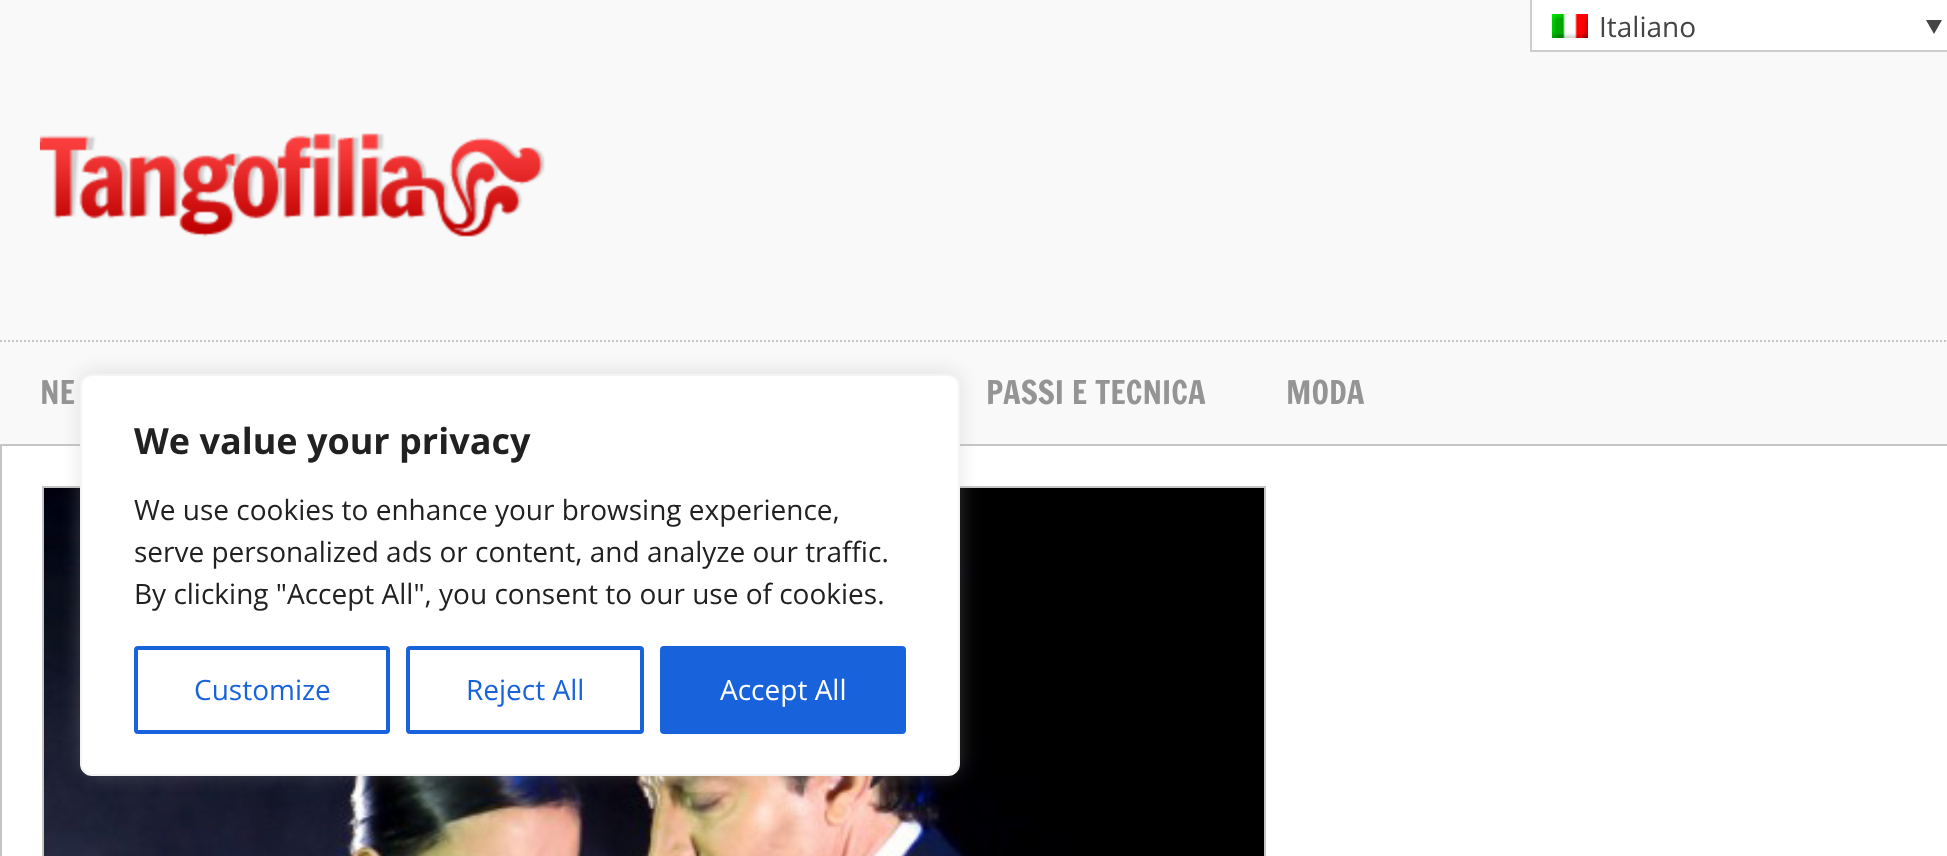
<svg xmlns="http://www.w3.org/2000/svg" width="1947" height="856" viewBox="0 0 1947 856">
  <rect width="100%" height="100%" fill="#f9f9f9"/>
  <path d="M1531 -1h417v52H1531z" fill="#fff" stroke="#cdcdcd" stroke-width="2"/>
  <image x="1552" y="14" width="36" height="24" href="img/1.png"/>
  <path d="M1926 20H1942L1934 34Z" fill="#444"/>
  <image x="40" y="133" width="505" height="104" href="img/2.png"/>
  <path d="M0 341H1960" fill="none" stroke="#c6c4c4" stroke-width="2" stroke-dasharray="2 2"/>
  <path d="M1 445h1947v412H1z" fill="#fff" stroke="#c6c4c4" stroke-width="2"/>
  <path d="M43 487h1222v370H43z" fill="none" stroke="#c6c4c4" stroke-width="2"/>
  <image x="44" y="488" width="1220" height="368" href="img/3.png"/>
  <rect x="80" y="372" width="880" height="402" rx="12" fill="#acabab4d" filter="blur(10px)"/>
  <rect x="81" y="375" width="878" height="400" rx="11" fill="#fff" stroke="#f4f4f4" stroke-width="2"/>
  <rect x="136" y="648" width="252" height="84" rx="2" fill="none" stroke="#1863dc" stroke-width="4"/>
  <rect x="408" y="648" width="234" height="84" rx="2" fill="none" stroke="#1863dc" stroke-width="4"/>
  <rect x="662" y="648" width="242" height="84" rx="2" fill="#1863dc" stroke="#1863dc" stroke-width="4"/>
  <text x="1599" y="37" font-family="Open Sans" font-size="28" fill="#444">Italiano</text>
  <g font-family="Francois One" font-size="32" fill="#949495">
    <text x="40" y="404">NE</text>
    <text x="986" y="404">PASSI E TECNICA</text>
    <text x="1286" y="404">MODA</text>
  </g>
  <text x="134" y="454" font-family="Open Sans" font-size="36" font-weight="bold" fill="#212121">We value your privacy</text>
  <g font-family="Open Sans" font-size="28" fill="#212121">
    <text x="134" y="520">We use cookies to enhance your browsing experience,</text>
    <text x="134" y="562">serve personalized ads or content, and analyze our traffic.</text>
    <text x="134" y="604">By clicking "Accept All", you consent to our use of cookies.</text>
  </g>
  <g font-family="Open Sans" font-size="28" fill="#1863dc">
    <text x="194" y="700">Customize</text>
    <text x="466" y="700">Reject All</text>
  </g>
  <text x="720" y="700" font-family="Open Sans" font-size="28" fill="#fff">Accept All</text>
</svg>
